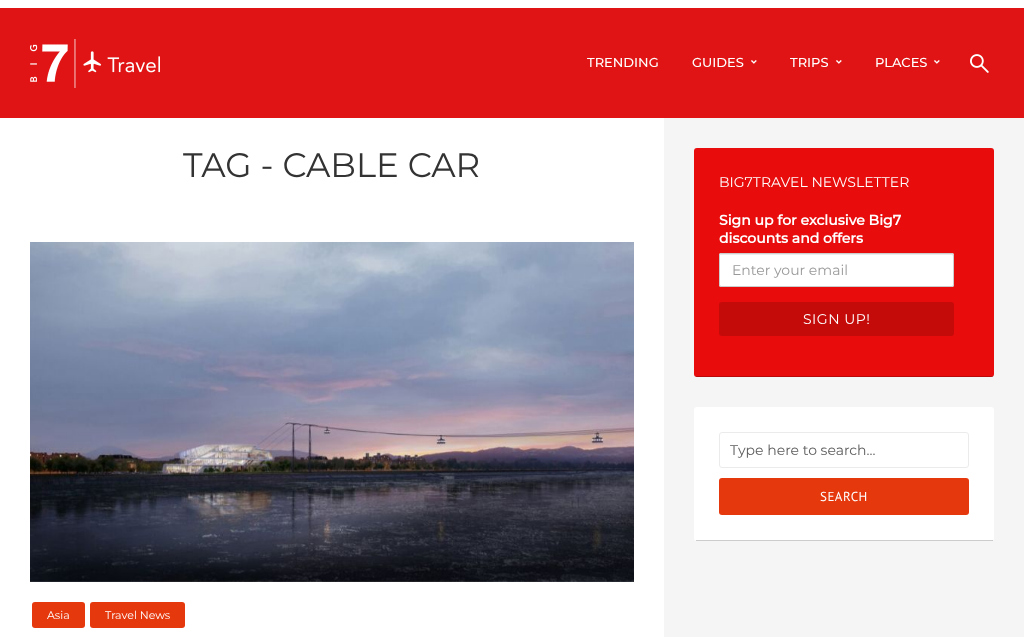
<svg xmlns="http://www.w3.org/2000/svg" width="1024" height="637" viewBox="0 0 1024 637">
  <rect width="100%" height="100%" fill="#fff"/>
  <path d="M0 8h1024v110H0z" fill="#e01414"/>
  <image x="30" y="39" width="130" height="49" href="img/1.png"/>
  <image x="970" y="54" width="19" height="19" href="img/2.png"/>
  <image x="30" y="242" width="604" height="340" href="img/3.png"/>
  <rect x="32" y="602" width="53" height="26" rx="3" fill="#e5380d"/>
  <rect x="90" y="602" width="95" height="26" rx="3" fill="#e5380d"/>
  <path d="M664 118h360v519H664z" fill="#f5f5f5"/>
  <rect x="694" y="148" width="300" height="229" rx="3" fill="#e80c0c"/>
  <path d="M696 376h297v1H696z" fill="#00000033"/>
  <rect x="719" y="253" width="235" height="34" rx="2" fill="#fff"/>
  <path d="M721 254L720 255H952L953 256C953 255 953 254 952 254Z" fill="#ececec"/>
  <rect x="719.5" y="253.5" width="234" height="33" rx="1.5" fill="none" stroke="#ccc"/>
  <rect x="719" y="302" width="235" height="34" rx="3" fill="#c50a0a"/>
  <rect x="694" y="407" width="300" height="134" rx="3" fill="#fff"/>
  <path d="M696 540h297v1H696z" fill="#00000033"/>
  <rect x="719.5" y="432.5" width="249" height="35" rx="2.5" fill="none" stroke="#ebebeb"/>
  <rect x="719" y="478" width="250" height="37" rx="3" fill="#e5380d"/>
  <g font-family="Montserrat" font-size="13" font-weight="500" fill="#fff">
    <text x="587" y="67">TRENDING</text>
    <text x="692" y="67">GUIDES</text>
  </g>
  <text x="751" y="67" font-family="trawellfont" font-size="13" fill="#fff">𐥻</text>
  <text x="790" y="67" font-family="Montserrat" font-size="13" font-weight="500" fill="#fff">TRIPS</text>
  <text x="836" y="67" font-family="trawellfont" font-size="13" fill="#fff">𐥻</text>
  <text x="875" y="67" font-family="Montserrat" font-size="13" font-weight="500" fill="#fff">PLACES</text>
  <text x="934" y="67" font-family="trawellfont" font-size="13" fill="#fff">𐥻</text>
  <text x="183" y="177" font-family="Montserrat" font-size="34" fill="#333">TAG - CABLE CAR</text>
  <g font-family="Montserrat" font-size="11" fill="#fff">
    <text x="47" y="619">Asia</text>
    <text x="105" y="619">Travel News</text>
  </g>
  <text x="719" y="187" font-family="Montserrat" font-size="14" fill="#fff">BIG7TRAVEL NEWSLETTER</text>
  <g font-family="Montserrat" font-size="14" font-weight="bold" fill="#fff">
    <text x="719" y="225">Sign up for exclusive Big7</text>
    <text x="719" y="243">discounts and offers</text>
  </g>
  <text x="732" y="275" font-family="Montserrat" font-size="14" fill="#999">Enter your email</text>
  <text x="803" y="324" font-family="Montserrat" font-size="14" letter-spacing="0.5" fill="#fff">SIGN UP!</text>
  <text x="730" y="455" font-family="Montserrat" font-size="14" fill="#5c5c5c">Type here to search...</text>
  <text x="820" y="501" font-family="PT Sans" font-size="13" letter-spacing="0.5" fill="#fff">SEARCH</text>
</svg>
